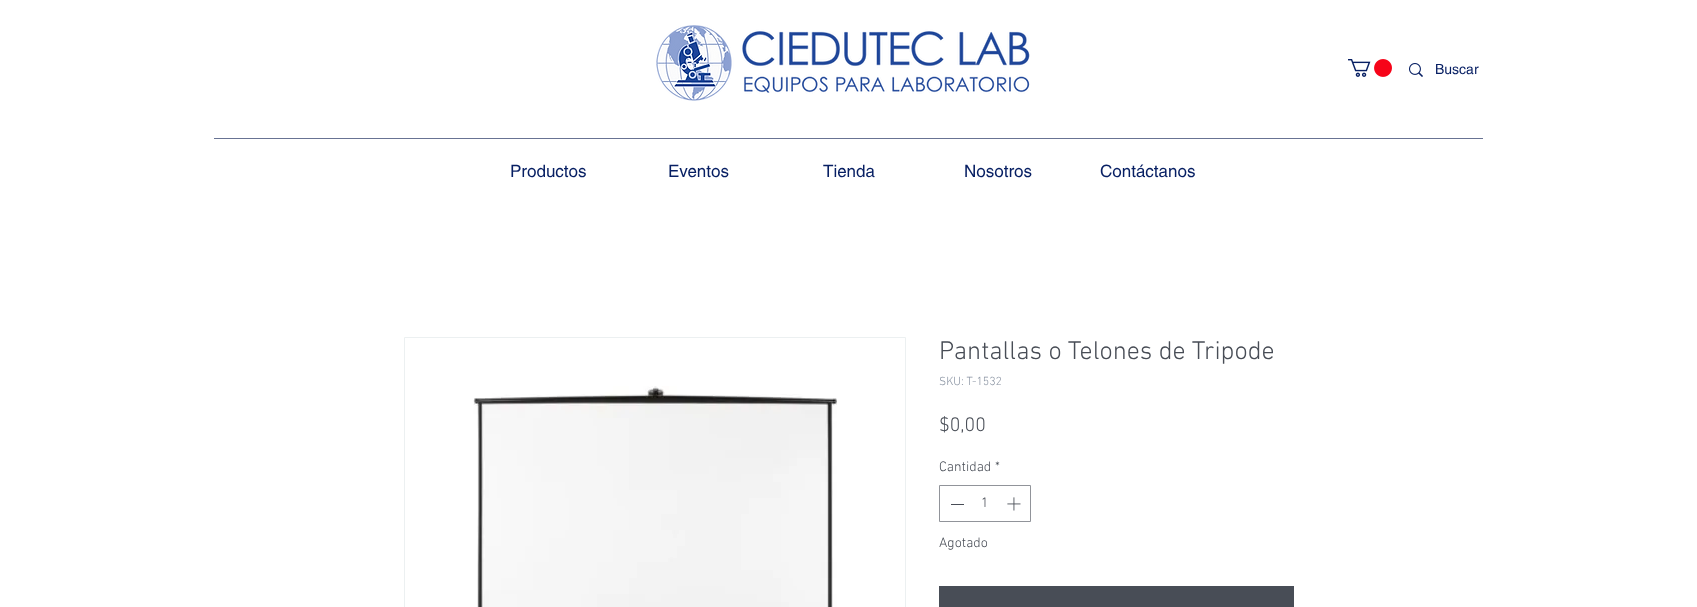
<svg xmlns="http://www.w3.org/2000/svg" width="1697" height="607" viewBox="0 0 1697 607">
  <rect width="100%" height="100%" fill="#fff"/>
  <image x="656" y="25" width="374" height="76" href="img/1.png"/>
  <image x="1348" y="59" width="44" height="18" href="img/2.png"/>
  <image x="1409" y="63" width="14" height="14" href="img/3.png"/>
  <path d="M214 138h1269v1H214z" fill="#687393"/>
  <path d="M404.5 337.5h501v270H404.5z" fill="none" stroke="#ecf0f1"/>
  <image x="473" y="386" width="364" height="221" href="img/4.png"/>
  <path d="M939.5 485.5h91v36H939.5z" fill="none" stroke="#91949a"/>
  <path d="M951 504h13v1H951z" fill="#484d56"/>
  <image x="1007" y="497" width="14" height="14" href="img/5.png"/>
  <path d="M939 586h355v21H939z" fill="#484d56"/>
  <text x="1435" y="74" font-family="helvetica" font-size="14" fill="#071f63">Buscar</text>
  <g font-family="helvetica" font-size="17" fill="#071f63">
    <text x="510" y="177">Productos</text>
    <text x="668" y="177">Eventos</text>
    <text x="823" y="177">Tienda</text>
    <text x="964" y="177">Nosotros</text>
    <text x="1100" y="177">Contáctanos</text>
  </g>
  <text x="939" y="359" font-family="'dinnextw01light'" font-size="26" font-weight="300" fill="#484d56">Pantallas o Telones de Tripode</text>
  <text x="939" y="385" font-family="'dinnextw01light'" font-size="12" font-weight="300" fill="#8892a1">SKU: T-1532</text>
  <text x="939" y="431" font-family="'dinnextw01light'" font-size="20" font-weight="300" fill="#484d56">$0,00</text>
  <g font-family="'dinnextw01light'" font-size="14" font-weight="300" fill="#484d56">
    <text x="939" y="471">Cantidad</text>
    <text x="995" y="471">*</text>
    <text x="981" y="507">1</text>
    <text x="939" y="547">Agotado</text>
  </g>
</svg>
